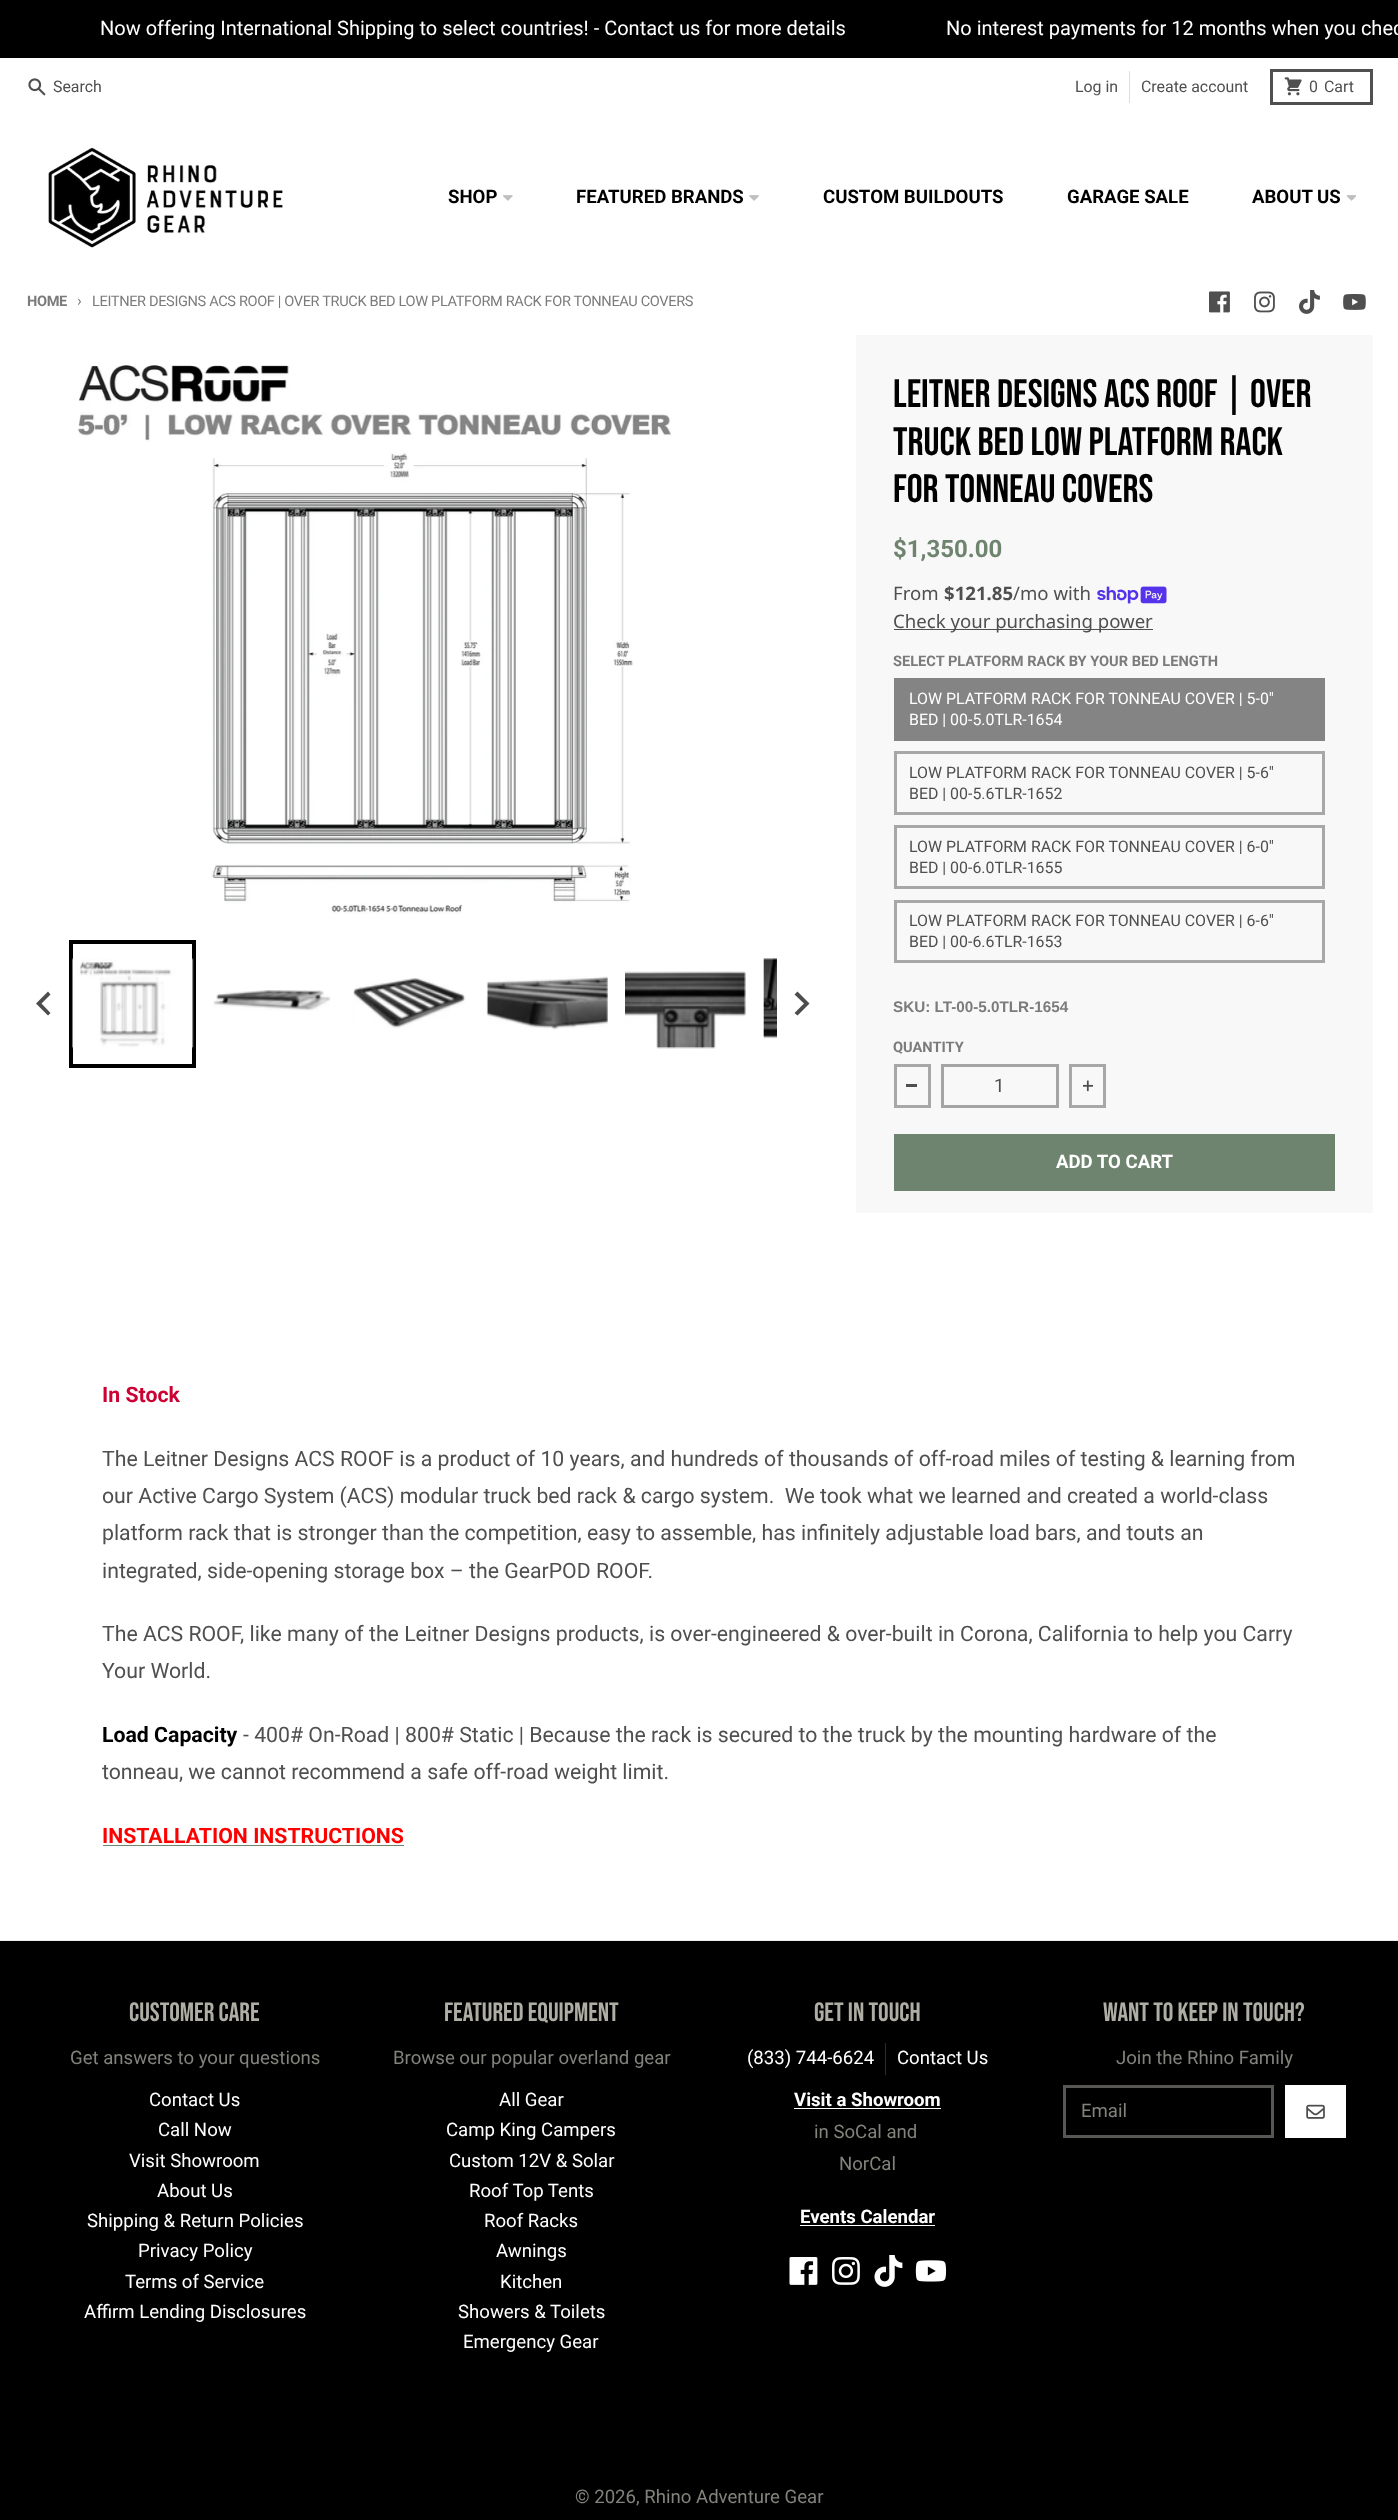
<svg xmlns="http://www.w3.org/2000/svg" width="1398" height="2520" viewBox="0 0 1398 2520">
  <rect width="100%" height="100%" fill="#000"/>
  <path d="M0 58h1398v1882H0z" fill="#fff"/>
  <image x="28" y="78" width="18" height="18" href="img/1.png"/>
  <path d="M1129 71h1v32H1129z" fill="#dcdcdc"/>
  <path d="M1271.5 70.5h100v33H1271.5z" fill="none" stroke="#505050" stroke-width="3"/>
  <image x="1284" y="77" width="18" height="19" href="img/2.png"/>
  <image x="48" y="147" width="235" height="101" href="img/3.png"/>
  <image x="503" y="195" width="10" height="6" href="img/4.png"/>
  <image x="749" y="195" width="10" height="6" href="img/5.png"/>
  <image x="1346" y="195" width="10" height="6" href="img/6.png"/>
  <image x="1209" y="291" width="21" height="22" href="img/7.png"/>
  <image x="1254" y="291" width="21" height="22" href="img/8.png"/>
  <image x="1299" y="290" width="21" height="24" href="img/9.png"/>
  <image x="1343" y="294" width="23" height="16" href="img/10.png"/>
  <image x="78" y="365" width="594" height="549" href="img/11.png"/>
  <path d="M71 942h123v124H71z" fill="none" stroke="#000" stroke-width="4"/>
  <image x="72" y="958" width="122" height="91" href="img/12.png"/>
  <image x="213" y="990" width="118" height="21" href="img/13.png"/>
  <image x="352" y="978" width="114" height="50" href="img/14.png"/>
  <image x="486" y="976" width="122" height="54" href="img/15.png"/>
  <image x="625" y="971" width="121" height="78" href="img/16.png"/>
  <image x="763" y="958" width="14" height="81" href="img/17.png"/>
  <path d="M48 991.5L50.5 994.5L41.5 1003.5L50.5 1013L48 1015.5L36 1003.5Z" fill="#4d4d4d"/>
  <path d="M797.5 991.5L794.5 994.5L804 1003.5L794.5 1013L797.5 1015.5L809.5 1003.5Z" fill="#4d4d4d"/>
  <path d="M856 335h517v878H856z" fill="#f8f8f8"/>
  <image x="1097" y="586" width="70" height="18" href="img/18.png"/>
  <path d="M894 629h259v1H894z" fill="#4f4f4f"/>
  <path d="M894 678h431v63H894z" fill="#848484"/>
  <path d="M895.5 752.5h428v61H895.5z" fill="none" stroke="#a7a7a7" stroke-width="3"/>
  <path d="M895.5 826.5h428v61H895.5z" fill="none" stroke="#a7a7a7" stroke-width="3"/>
  <path d="M895.5 901.5h428v60H895.5z" fill="none" stroke="#a7a7a7" stroke-width="3"/>
  <path d="M895.5 1065.5h34v41H895.5z" fill="none" stroke="#a7a7a7" stroke-width="3"/>
  <path d="M906 1084h11v3H906z" fill="#4f4f4f"/>
  <path d="M942.5 1065.5h115v41H942.5z" fill="none" stroke="#a4a4a4" stroke-width="3"/>
  <path d="M1070.5 1065.5h34v41H1070.5z" fill="none" stroke="#a7a7a7" stroke-width="3"/>
  <image x="1083" y="1080" width="10" height="12" href="img/19.png"/>
  <path d="M894 1134h441v57H894z" fill="#6e846f"/>
  <path d="M0 1940h1398v1H0z" fill="#ededed"/>
  <path d="M103 1845h301v1H103z" fill="#6e846f"/>
  <path d="M885 2043h1v32H885z" fill="#2c2c29"/>
  <path d="M794 2108h147v1H794z" fill="#fff"/>
  <path d="M800 2225h135v1H800z" fill="#fff"/>
  <image x="789" y="2257" width="29" height="28" href="img/20.png"/>
  <image x="832" y="2257" width="28" height="28" href="img/21.png"/>
  <image x="874" y="2255" width="29" height="32" href="img/22.png"/>
  <image x="915" y="2260" width="32" height="22" href="img/23.png"/>
  <path d="M1064.5 2086.5h208v50H1064.5z" fill="none" stroke="#585753" stroke-width="3"/>
  <path d="M1285 2085h61v53H1285z" fill="#fff"/>
  <image x="1306" y="2104" width="19" height="15" href="img/24.png"/>
  <g font-family="Roboto" font-size="20" fill="#fff">
    <text x="100" y="35">Now offering International Shipping to select countries! - Contact us for more details</text>
    <text x="946" y="35">No interest payments for 12 months when you chec</text>
  </g>
  <g font-family="Roboto" font-size="15.9" fill="#4f4f4f">
    <text x="53" y="92">Search</text>
    <text x="1075" y="92">Log in</text>
    <text x="1141" y="92">Create account</text>
    <text x="1309" y="92">0</text>
    <text x="1324" y="92">Cart</text>
  </g>
  <g font-family="Roboto" font-size="18.6" font-weight="bold" fill="#000">
    <text x="448" y="203">SHOP</text>
    <text x="576" y="203">FEATURED BRANDS</text>
    <text x="823" y="203">CUSTOM BUILDOUTS</text>
    <text x="1067" y="203">GARAGE SALE</text>
    <text x="1252" y="203">ABOUT US</text>
  </g>
  <text x="27" y="306" font-family="Roboto" font-size="14.6" font-weight="bold" letter-spacing="-0.37" fill="#7b7b7b">HOME</text>
  <text x="77" y="306" font-family="Roboto" font-size="15.9" letter-spacing="-0.37" fill="#7b7b7b">›</text>
  <text x="92" y="306" font-family="Roboto" font-size="14.6" letter-spacing="-0.37" fill="#7b7b7b">LEITNER DESIGNS ACS ROOF | OVER TRUCK BED LOW PLATFORM RACK FOR TONNEAU COVERS</text>
  <g font-family="Bebas Neue" font-size="39.75" fill="#000">
    <text x="893" y="407">LEITNER DESIGNS ACS ROOF | OVER</text>
    <text x="893" y="455">TRUCK BED LOW PLATFORM RACK</text>
    <text x="893" y="502">FOR TONNEAU COVERS</text>
  </g>
  <text x="893" y="557" font-family="Roboto" font-size="24" font-weight="bold" fill="#6e846f">$1,350.00</text>
  <text x="893" y="600" font-family="Noto Sans" font-size="18.6" fill="#4f4f4f">From</text>
  <text x="944" y="600" font-family="Noto Sans" font-size="18.6" font-weight="bold" fill="#4f4f4f">$121.85</text>
  <g font-family="Noto Sans" font-size="18.6" fill="#4f4f4f">
    <text x="1013" y="600">/mo with</text>
    <text x="893" y="628">Check your purchasing power</text>
  </g>
  <text x="893" y="666" font-family="Roboto" font-size="14.6" font-weight="bold" fill="#7b7b7b">SELECT PLATFORM RACK BY YOUR BED LENGTH</text>
  <g font-family="Roboto" font-size="15.9" fill="#fff">
    <text x="909" y="704">LOW PLATFORM RACK FOR TONNEAU COVER | 5-0"</text>
    <text x="909" y="725">BED | 00-5.0TLR-1654</text>
  </g>
  <g font-family="Roboto" font-size="15.9" fill="#4f4f4f">
    <text x="909" y="778">LOW PLATFORM RACK FOR TONNEAU COVER | 5-6"</text>
    <text x="909" y="799">BED | 00-5.6TLR-1652</text>
    <text x="909" y="852">LOW PLATFORM RACK FOR TONNEAU COVER | 6-0"</text>
    <text x="909" y="873">BED | 00-6.0TLR-1655</text>
    <text x="909" y="926">LOW PLATFORM RACK FOR TONNEAU COVER | 6-6"</text>
    <text x="909" y="947">BED | 00-6.6TLR-1653</text>
  </g>
  <text x="893" y="1012" font-family="Liberation Sans" font-size="15.25" font-weight="bold" fill="#7b7b7b">SKU: LT-00-5.0TLR-1654</text>
  <text x="893" y="1052" font-family="Roboto" font-size="14.6" font-weight="bold" fill="#7b7b7b">QUANTITY</text>
  <text x="994" y="1092" font-family="Roboto" font-size="18.6" fill="#4f4f4f">1</text>
  <text x="1056" y="1168" font-family="Roboto" font-size="18.6" font-weight="bold" fill="#fff">ADD TO CART</text>
  <text x="102" y="1402" font-family="Roboto" font-size="21.25" font-weight="bold" fill="#c03">In Stock</text>
  <g font-family="Roboto" font-size="21.25" fill="#4f4f4f">
    <text x="102" y="1466">The Leitner Designs ACS ROOF is a product of 10 years, and hundreds of thousands of off-road miles of testing &amp; learning from</text>
    <text x="102" y="1503" xml:space="preserve">our Active Cargo System (ACS) modular truck bed rack &amp; cargo system.  We took what we learned and created a world-class</text>
    <text x="102" y="1540">platform rack that is stronger than the competition, easy to assemble, has infinitely adjustable load bars, and touts an</text>
    <text x="102" y="1578">integrated, side-opening storage box – the GearPOD ROOF.</text>
    <text x="102" y="1641">The ACS ROOF, like many of the Leitner Designs products, is over-engineered &amp; over-built in Corona, California to help you Carry</text>
    <text x="102" y="1678">Your World.</text>
  </g>
  <text x="102" y="1742" font-family="Roboto" font-size="21.25" font-weight="bold" fill="#000">Load Capacity</text>
  <g font-family="Roboto" font-size="21.25" fill="#4f4f4f">
    <text x="243" y="1742">- 400# On-Road | 800# Static | Because the rack is secured to the truck by the mounting hardware of the</text>
    <text x="102" y="1779">tonneau, we cannot recommend a safe off-road weight limit.</text>
  </g>
  <text x="102" y="1843" font-family="Roboto" font-size="21.25" font-weight="bold" fill="#f00">INSTALLATION INSTRUCTIONS</text>
  <text x="129" y="2021" font-family="Bebas Neue" font-size="26.5" fill="#afaea5">CUSTOMER CARE</text>
  <text x="70" y="2064" font-family="Roboto" font-size="18.6" fill="#83837c">Get answers to your questions</text>
  <g font-family="Roboto" font-size="18.6" fill="#fff">
    <text x="149" y="2106">Contact Us</text>
    <text x="158" y="2136">Call Now</text>
    <text x="129" y="2167">Visit Showroom</text>
    <text x="157" y="2197">About Us</text>
    <text x="87" y="2227">Shipping &amp; Return Policies</text>
    <text x="138" y="2257">Privacy Policy</text>
    <text x="125" y="2288">Terms of Service</text>
    <text x="84" y="2318">Affirm Lending Disclosures</text>
  </g>
  <text x="444" y="2021" font-family="Bebas Neue" font-size="26.5" fill="#afaea5">FEATURED EQUIPMENT</text>
  <text x="393" y="2064" font-family="Roboto" font-size="18.6" fill="#83837c">Browse our popular overland gear</text>
  <g font-family="Roboto" font-size="18.6" fill="#fff">
    <text x="499" y="2106">All Gear</text>
    <text x="446" y="2136">Camp King Campers</text>
    <text x="449" y="2167">Custom 12V &amp; Solar</text>
    <text x="469" y="2197">Roof Top Tents</text>
    <text x="484" y="2227">Roof Racks</text>
    <text x="496" y="2257">Awnings</text>
    <text x="500" y="2288">Kitchen</text>
    <text x="458" y="2318">Showers &amp; Toilets</text>
    <text x="463" y="2348">Emergency Gear</text>
  </g>
  <text x="814" y="2021" font-family="Bebas Neue" font-size="26.5" fill="#afaea5">GET IN TOUCH</text>
  <g font-family="Roboto" font-size="18.6" fill="#fff">
    <text x="747" y="2064">(833) 744-6624</text>
    <text x="897" y="2064">Contact Us</text>
  </g>
  <text x="794" y="2106" font-family="Roboto" font-size="18.6" font-weight="bold" fill="#fff">Visit a Showroom</text>
  <g font-family="Roboto" font-size="18.6" fill="#83837c">
    <text x="814" y="2138">in SoCal and</text>
    <text x="839" y="2170">NorCal</text>
  </g>
  <text x="800" y="2223" font-family="Roboto" font-size="18.6" font-weight="bold" fill="#fff">Events Calendar</text>
  <text x="1103" y="2021" font-family="Bebas Neue" font-size="26.5" fill="#afaea5">WANT TO KEEP IN TOUCH?</text>
  <g font-family="Roboto" font-size="18.6" fill="#83837c">
    <text x="1116" y="2064">Join the Rhino Family</text>
    <text x="1081" y="2117">Email</text>
    <text x="575" y="2503">© 2026, Rhino Adventure Gear</text>
  </g>
</svg>
